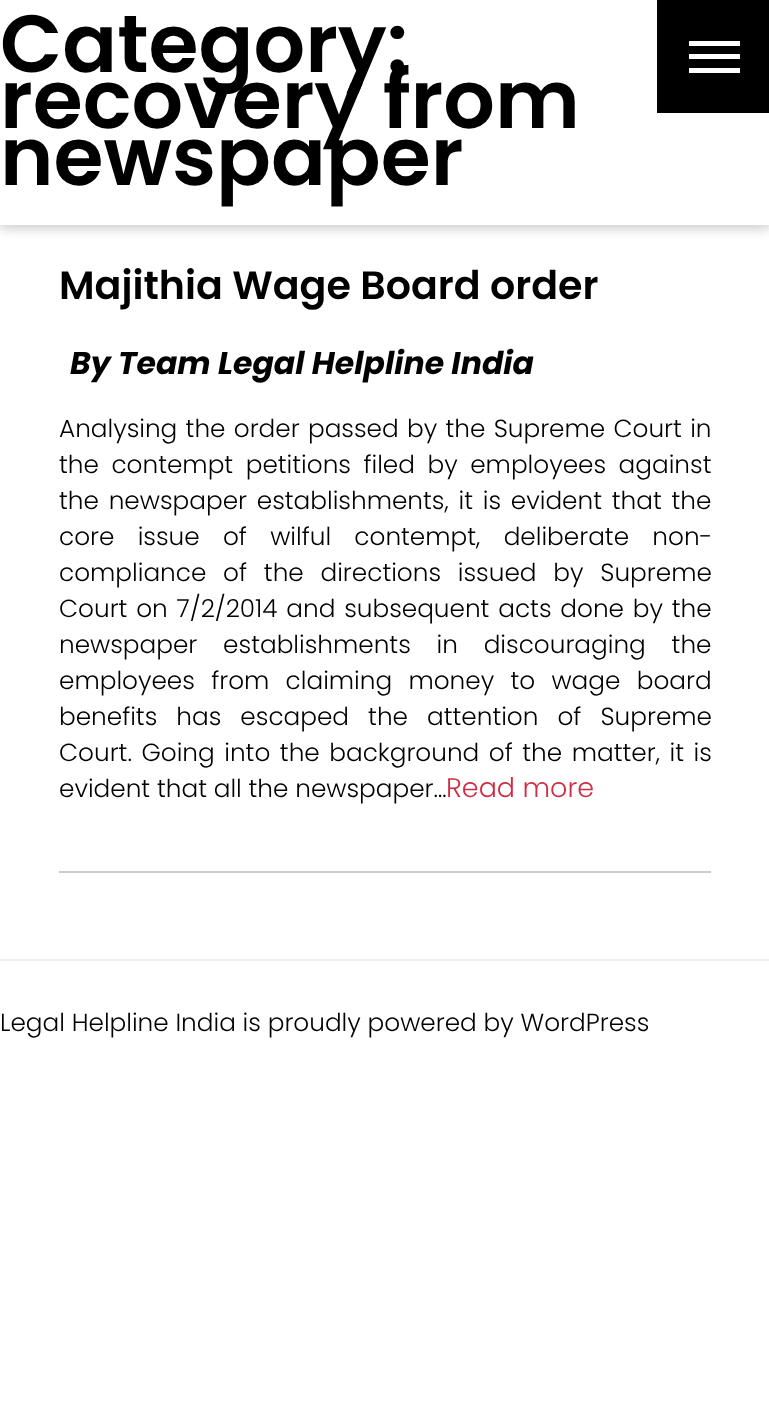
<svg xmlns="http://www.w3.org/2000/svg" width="769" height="1401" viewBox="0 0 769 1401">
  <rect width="100%" height="100%" fill="#fff"/>
  <path d="M0 0h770v225H0z" fill="#ccc" filter="blur(7px)"/>
  <path d="M0 0h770v225H0z" fill="#ccc" filter="blur(7px)"/>
  <path d="M0 0h769v225H0z" fill="#fff"/>
  <path d="M59 871h652v2H59z" fill="#ccc"/>
  <path d="M657 0h112v113H657z" fill="#000"/>
  <path d="M689 41h51v5H689z" fill="#fff"/>
  <path d="M689 54h51v5H689z" fill="#fff"/>
  <path d="M689 68h51v5H689z" fill="#fff"/>
  <path d="M0 959h769v2H0z" fill="#eee"/>
  <g font-family="Poppins" font-size="81" font-weight="600" fill="#000">
    <text x="0" y="72">Category:</text>
    <text x="0" y="128">recovery from</text>
    <text x="0" y="185">newspaper</text>
  </g>
  <text x="59" y="299" font-family="Poppins" font-size="39.6" font-weight="600" fill="#000">Majithia Wage Board order</text>
  <text x="70" y="374" font-family="Poppins" font-size="31.5" font-weight="bold" font-style="italic" fill="#000">By Team Legal Helpline India</text>
  <g font-family="Poppins" font-size="24.75" font-weight="300" fill="#000">
    <text x="59" y="437" word-spacing="1.5">Analysing the order passed by the Supreme Court in</text>
    <text x="59" y="473" word-spacing="5.75">the contempt petitions filed by employees against</text>
    <text x="59" y="509" word-spacing="3">the newspaper establishments, it is evident that the</text>
    <text x="59" y="545" word-spacing="16.5">core issue of wilful contempt, deliberate non-</text>
    <text x="59" y="581" word-spacing="10">compliance of the directions issued by Supreme</text>
    <text x="59" y="617" word-spacing="2">Court on 7/2/2014 and subsequent acts done by the</text>
    <text x="59" y="653" word-spacing="19">newspaper establishments in discouraging the</text>
    <text x="59" y="689" word-spacing="9.5">employees from claiming money to wage board</text>
    <text x="59" y="725" word-spacing="12.25">benefits has escaped the attention of Supreme</text>
    <text x="59" y="761" word-spacing="2.75">Court. Going into the background of the matter, it is</text>
    <text x="59" y="797">evident that all the newspaper…</text>
  </g>
  <text x="446" y="797" font-family="Poppins" font-size="27" font-weight="300" fill="#cf2d43">Read more</text>
  <text x="0" y="1031" font-family="Poppins" font-size="24.75" font-weight="300" fill="#000">Legal Helpline India is proudly powered by WordPress</text>
</svg>
